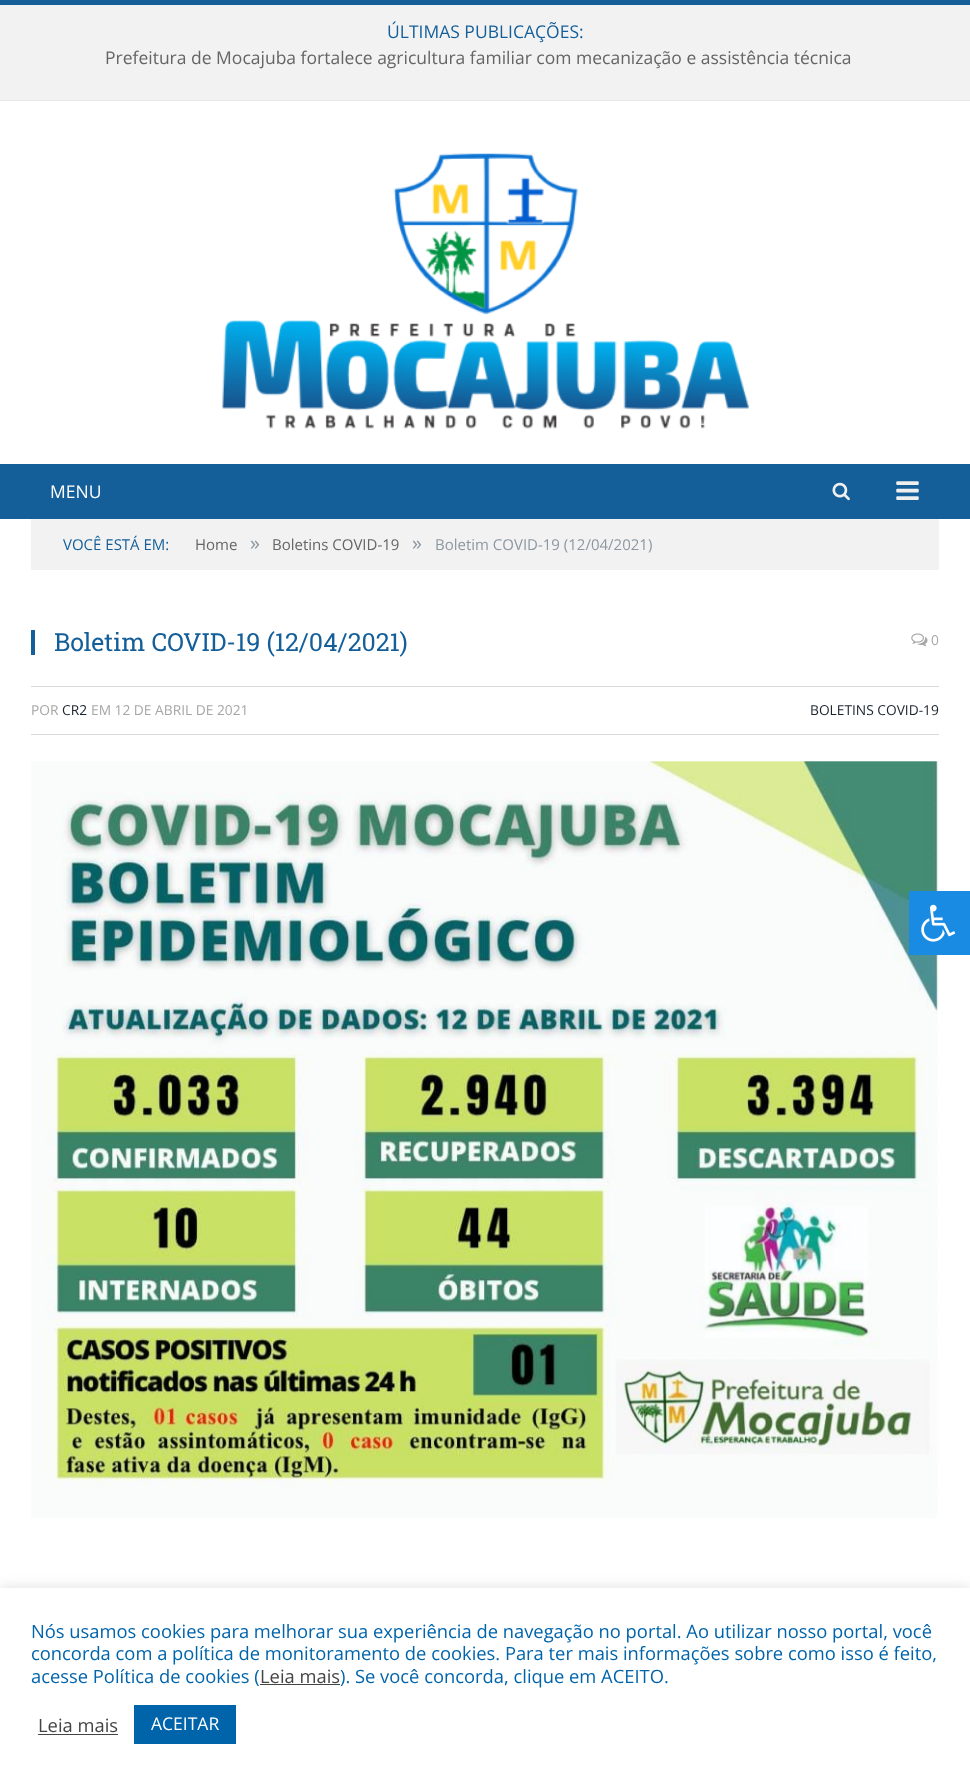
<svg xmlns="http://www.w3.org/2000/svg" width="970" height="1781" viewBox="0 0 970 1781">
  <rect width="100%" height="100%" fill="#fff"/>
  <path d="M0 5h970v95H0z" fill="#f2f2f2"/>
  <path d="M0 0h970v5H0z" fill="#145f99"/>
  <path d="M0 100h970v1H0z" fill="#e7e7e7"/>
  <image x="222" y="153" width="527" height="276" href="img/1.png"/>
  <path d="M0 464h970v55H0z" fill="#145f99"/>
  <image x="832" y="482" width="18" height="19" href="img/2.png"/>
  <image x="896" y="481" width="23" height="19" href="img/3.png"/>
  <path d="M31 519h908v51H31z" fill="#f2f2f2"/>
  <path d="M31 630h4v25H31z" fill="#145f99"/>
  <image x="911" y="633" width="17" height="14" href="img/4.png"/>
  <path d="M31 686h908v1H31z" fill="#d9d9d9"/>
  <path d="M31 734h908v1H31z" fill="#d9d9d9"/>
  <image x="31" y="761" width="908" height="757" href="img/5.png"/>
  <path d="M909 891h61v64H909z" fill="#198be3"/>
  <image x="921" y="904" width="35" height="38" href="img/6.png"/>
  <path d="M0 1586h970v194H0z" fill="#acabab4d" filter="blur(6px)"/>
  <path d="M0 1588h970v193H0z" fill="#fff"/>
  <path d="M260 1684h80v1H260z" fill="#444"/>
  <path d="M38 1734h80v1H38z" fill="#444"/>
  <path d="M134 1705h102v39H134z" fill="#0064ab"/>
  <text x="387" y="38" font-family="Open Sans" font-size="17.5" fill="#145f99">ÚLTIMAS PUBLICAÇÕES:</text>
  <text x="105" y="64" font-family="Open Sans" font-size="17.5" fill="#656565">Prefeitura de Mocajuba fortalece agricultura familiar com mecanização e assistência técnica</text>
  <text x="50" y="498" font-family="Open Sans" font-size="17.5" fill="#fff">MENU</text>
  <text x="63" y="550" font-family="Open Sans" font-size="15" fill="#145f99">VOCÊ ESTÁ EM:</text>
  <text x="195" y="550" font-family="Open Sans" font-size="15" fill="#656565">Home</text>
  <text x="250" y="550" font-family="Open Sans" font-size="20" fill="#8d97a1">»</text>
  <text x="272" y="550" font-family="Open Sans" font-size="15" fill="#656565">Boletins COVID-19</text>
  <text x="412" y="550" font-family="Open Sans" font-size="20" fill="#8d97a1">»</text>
  <text x="435" y="550" font-family="Open Sans" font-size="15" fill="#8d97a1">Boletim COVID-19 (12/04/2021)</text>
  <text x="54" y="651" font-family="Roboto Slab" font-size="25" fill="#145f99">Boletim COVID-19 (12/04/2021)</text>
  <g font-family="Open Sans" font-size="13.75" fill="#a6a6a6">
    <text x="931" y="645">0</text>
    <text x="31" y="715">POR</text>
  </g>
  <text x="62" y="715" font-family="Open Sans" font-size="13.75" fill="#19232d">CR2</text>
  <text x="91" y="715" font-family="Open Sans" font-size="13.75" fill="#a6a6a6">EM 12 DE ABRIL DE 2021</text>
  <text x="810" y="715" font-family="Open Sans" font-size="13.75" fill="#19232d">BOLETINS COVID-19</text>
  <g font-family="Open Sans" font-size="18.35" fill="#0064ab">
    <text x="31" y="1638">Nós usamos cookies para melhorar sua experiência de navegação no portal. Ao utilizar nosso portal, você</text>
    <text x="31" y="1660">concorda com a política de monitoramento de cookies. Para ter mais informações sobre como isso é feito,</text>
    <text x="31" y="1683">acesse Política de cookies (</text>
  </g>
  <text x="260" y="1683" font-family="Open Sans" font-size="18.35" fill="#444">Leia mais</text>
  <text x="340" y="1683" font-family="Open Sans" font-size="18.35" fill="#0064ab">). Se você concorda, clique em ACEITO.</text>
  <text x="38" y="1732" font-family="Open Sans" font-size="18.35" fill="#444">Leia mais</text>
  <text x="151" y="1730" font-family="Open Sans" font-size="17.5" fill="#fff">ACEITAR</text>
</svg>
